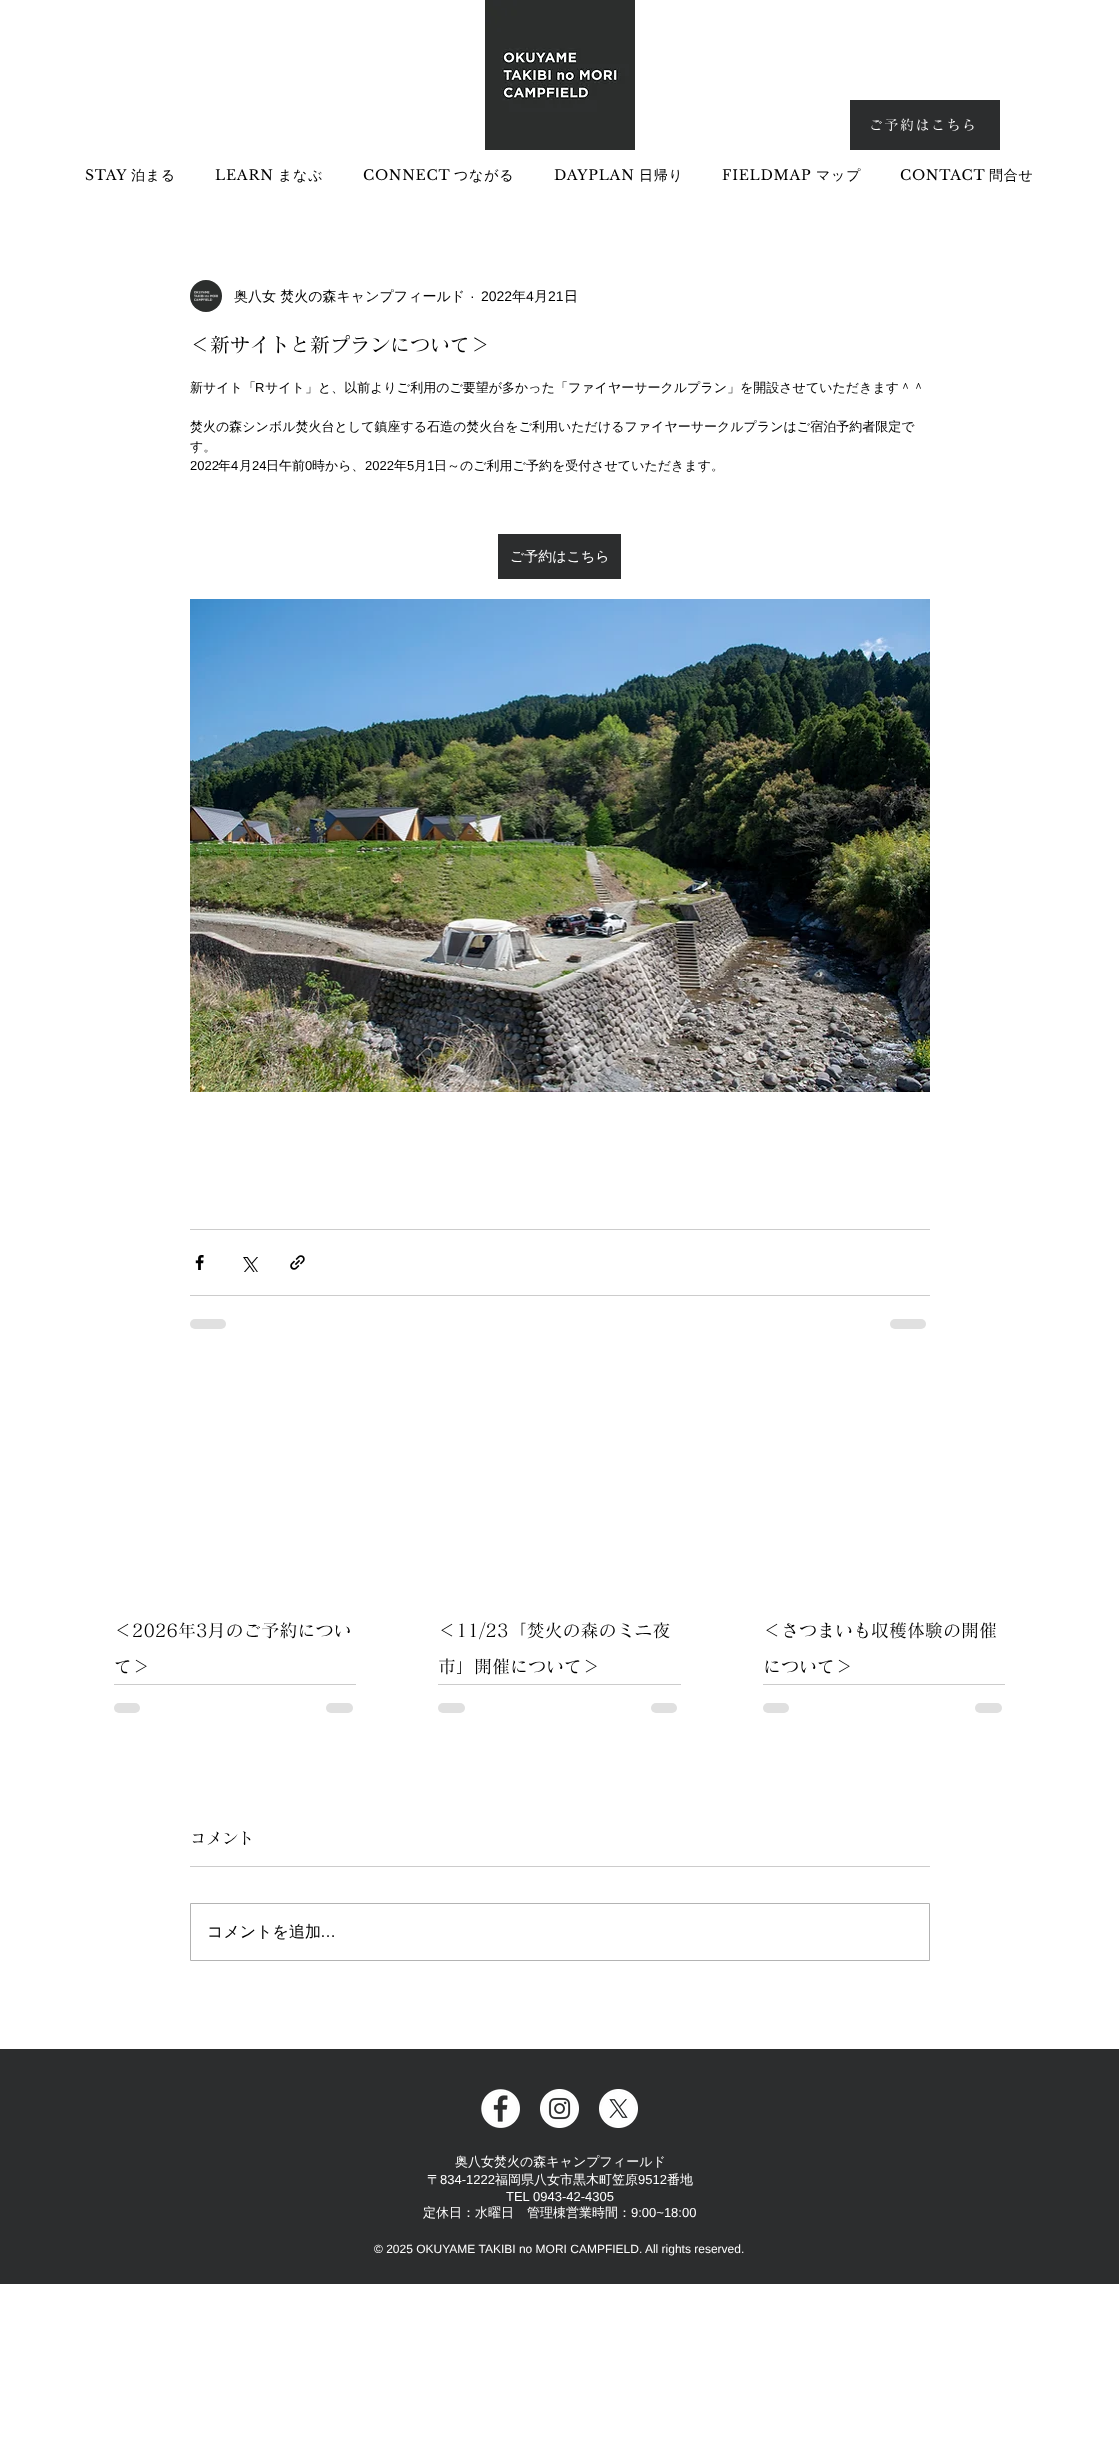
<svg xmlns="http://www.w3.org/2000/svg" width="1119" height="2444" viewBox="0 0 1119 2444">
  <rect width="100%" height="100%" fill="#fff"/>
  <image x="485" y="0" width="150" height="150" href="img/1.png"/>
  <path d="M850 100h150v50H850z" fill="#2c2d2e"/>
  <image x="190" y="280" width="32" height="32" href="img/2.png"/>
  <path d="M498 534h123v45H498z" fill="#2c2d2e"/>
  <image x="190" y="599" width="740" height="493" href="img/3.png"/>
  <path d="M190 1229h740v1H190z" fill="#ccc"/>
  <image x="195" y="1255" width="9" height="15" href="img/4.png"/>
  <image x="243" y="1257" width="15" height="15" href="img/5.png"/>
  <image x="290" y="1255" width="15" height="15" href="img/6.png"/>
  <path d="M190 1295h740v1H190z" fill="#ccc"/>
  <rect x="190" y="1319" width="36" height="10" rx="5" fill="#e0e0e0"/>
  <rect x="890" y="1319" width="36" height="10" rx="5" fill="#e0e0e0"/>
  <path d="M114 1684h242v1H114z" fill="#ccc"/>
  <rect x="114" y="1703" width="26" height="10" rx="5" fill="#e0e0e0"/>
  <rect x="326" y="1703" width="27" height="10" rx="5" fill="#e0e0e0"/>
  <path d="M438 1684h243v1H438z" fill="#ccc"/>
  <rect x="438" y="1703" width="27" height="10" rx="5" fill="#e0e0e0"/>
  <rect x="651" y="1703" width="26" height="10" rx="5" fill="#e0e0e0"/>
  <path d="M763 1684h242v1H763z" fill="#ccc"/>
  <rect x="763" y="1703" width="26" height="10" rx="5" fill="#e0e0e0"/>
  <rect x="975" y="1703" width="27" height="10" rx="5" fill="#e0e0e0"/>
  <path d="M190 1866h740v1H190z" fill="#ccc"/>
  <path d="M190.5 1903.5h739v57H190.5z" fill="none" stroke="#b3b3b3"/>
  <path d="M0 2049h1119v235H0z" fill="#2c2d2e"/>
  <image x="481" y="2089" width="39" height="39" href="img/7.png"/>
  <image x="540" y="2089" width="39" height="39" href="img/8.png"/>
  <image x="599" y="2089" width="39" height="39" href="img/9.png"/>
  <text x="869" y="130" font-family="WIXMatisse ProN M" font-size="14" font-weight="500" letter-spacing="1.5" fill="#fff">ご予約はこちら</text>
  <text x="85" y="180" font-family="Libre Baskerville" font-size="14" letter-spacing="0.75" fill="#000">STAY</text>
  <text x="131" y="180" font-family="WenQuanYi Zen Hei" font-size="14" font-weight="500" letter-spacing="0.75" fill="#000">泊まる</text>
  <text x="215" y="180" font-family="Libre Baskerville" font-size="14" letter-spacing="0.75" fill="#000">LEARN</text>
  <text x="278" y="180" font-family="WenQuanYi Zen Hei" font-size="14" font-weight="500" letter-spacing="0.75" fill="#000">まなぶ</text>
  <text x="363" y="180" font-family="Libre Baskerville" font-size="14" letter-spacing="0.75" fill="#000">CONNECT</text>
  <text x="454" y="180" font-family="WenQuanYi Zen Hei" font-size="14" font-weight="500" letter-spacing="0.75" fill="#000">つながる</text>
  <text x="554" y="180" font-family="Libre Baskerville" font-size="14" letter-spacing="0.75" fill="#000">DAYPLAN</text>
  <text x="639" y="180" font-family="WenQuanYi Zen Hei" font-size="14" font-weight="500" letter-spacing="0.75" fill="#000">日帰り</text>
  <text x="722" y="180" font-family="Libre Baskerville" font-size="14" letter-spacing="0.75" fill="#000">FIELDMAP</text>
  <text x="816" y="180" font-family="WenQuanYi Zen Hei" font-size="14" font-weight="500" letter-spacing="0.75" fill="#000">マップ</text>
  <text x="900" y="180" font-family="Libre Baskerville" font-size="14" letter-spacing="0.75" fill="#000">CONTACT</text>
  <text x="989" y="180" font-family="WenQuanYi Zen Hei" font-size="14" font-weight="500" letter-spacing="0.75" fill="#000">問合せ</text>
  <text x="234" y="301" font-family="WenQuanYi Zen Hei" font-size="14" font-weight="500" fill="#000">奥八女 焚火の森キャンプフィールド</text>
  <g font-family="Liberation Sans" font-size="14" fill="#000">
    <text x="470" y="301">·</text>
    <text x="481" y="301">2022</text>
  </g>
  <text x="512" y="301" font-family="WenQuanYi Zen Hei" font-size="14" font-weight="500" fill="#000">年</text>
  <text x="526" y="301" font-family="Liberation Sans" font-size="14" fill="#000">4</text>
  <text x="534" y="301" font-family="WenQuanYi Zen Hei" font-size="14" font-weight="500" fill="#000">月</text>
  <text x="548" y="301" font-family="Liberation Sans" font-size="14" fill="#000">21</text>
  <text x="564" y="301" font-family="WenQuanYi Zen Hei" font-size="14" font-weight="500" fill="#000">日</text>
  <text x="190" y="352" font-family="WIXMatisse ProN M" font-size="20" font-weight="500" fill="#000">＜新サイトと新プランについて＞</text>
  <text x="190" y="392" font-family="WenQuanYi Zen Hei" font-size="13" font-weight="500" fill="#000">新サイト「</text>
  <text x="255" y="392" font-family="Liberation Sans" font-size="13" fill="#000">R</text>
  <g font-family="WenQuanYi Zen Hei" font-size="13" font-weight="500" fill="#000">
    <text x="265" y="392">サイト」と、以前よりご利用のご要望が多かった「ファイヤーサークルプラン」を開設させていただきます＾＾</text>
    <text x="190" y="431">焚火の森シンボル焚火台として鎮座する石造の焚火台をご利用いただけるファイヤーサークルプランはご宿泊予約者限定で</text>
    <text x="190" y="451">す。</text>
  </g>
  <text x="190" y="470" font-family="Liberation Sans" font-size="13" fill="#000">2022</text>
  <text x="218" y="470" font-family="WenQuanYi Zen Hei" font-size="13" font-weight="500" fill="#000">年</text>
  <text x="231" y="470" font-family="Liberation Sans" font-size="13" fill="#000">4</text>
  <text x="239" y="470" font-family="WenQuanYi Zen Hei" font-size="13" font-weight="500" fill="#000">月</text>
  <text x="252" y="470" font-family="Liberation Sans" font-size="13" fill="#000">24</text>
  <text x="266" y="470" font-family="WenQuanYi Zen Hei" font-size="13" font-weight="500" fill="#000">日午前</text>
  <text x="305" y="470" font-family="Liberation Sans" font-size="13" fill="#000">0</text>
  <text x="312" y="470" font-family="WenQuanYi Zen Hei" font-size="13" font-weight="500" fill="#000">時から、</text>
  <text x="365" y="470" font-family="Liberation Sans" font-size="13" fill="#000">2022</text>
  <text x="394" y="470" font-family="WenQuanYi Zen Hei" font-size="13" font-weight="500" fill="#000">年</text>
  <text x="407" y="470" font-family="Liberation Sans" font-size="13" fill="#000">5</text>
  <text x="414" y="470" font-family="WenQuanYi Zen Hei" font-size="13" font-weight="500" fill="#000">月</text>
  <text x="427" y="470" font-family="Liberation Sans" font-size="13" fill="#000">1</text>
  <text x="434" y="470" font-family="WenQuanYi Zen Hei" font-size="13" font-weight="500" fill="#000">日～のご利用ご予約を受付させていただきます。</text>
  <text x="510" y="561" font-family="WenQuanYi Zen Hei" font-size="14" font-weight="500" fill="#fff">ご予約はこちら</text>
  <g font-family="WIXMatisse ProN M" font-size="18" font-weight="500" fill="#000">
    <text x="114" y="1637">＜2026年3月のご予約につい</text>
    <text x="114" y="1673">て＞</text>
    <text x="438" y="1637">＜11/23「焚火の森のミニ夜</text>
    <text x="438" y="1673">市」開催について＞</text>
    <text x="763" y="1637">＜さつまいも収穫体験の開催</text>
    <text x="763" y="1673">について＞</text>
  </g>
  <text x="190" y="1844" font-family="WIXMatisse ProN M" font-size="16" font-weight="500" fill="#000">コメント</text>
  <text x="207" y="1937" font-family="WenQuanYi Zen Hei" font-size="16" font-weight="500" fill="#000">コメントを追加</text>
  <text x="320" y="1937" font-family="Liberation Sans" font-size="16" fill="#000">…</text>
  <g font-family="WenQuanYi Zen Hei" font-size="13" font-weight="500" fill="#fff">
    <text x="455" y="2166">奥八女焚火の森キャンプフィールド</text>
    <text x="427" y="2184">〒</text>
  </g>
  <text x="440" y="2184" font-family="Liberation Sans" font-size="13" fill="#fff">834-1222</text>
  <text x="495" y="2184" font-family="WenQuanYi Zen Hei" font-size="13" font-weight="500" fill="#fff">福岡県八女市黒木町笠原</text>
  <text x="638" y="2184" font-family="Liberation Sans" font-size="13" fill="#fff">9512</text>
  <text x="667" y="2184" font-family="WenQuanYi Zen Hei" font-size="13" font-weight="500" fill="#fff">番地</text>
  <text x="506" y="2201" font-family="Liberation Sans" font-size="13" fill="#fff">TEL 0943-42-4305</text>
  <text x="423" y="2217" font-family="WenQuanYi Zen Hei" font-size="13" font-weight="500" fill="#fff">定休日：水曜日　管理棟営業時間：</text>
  <text x="631" y="2217" font-family="Liberation Sans" font-size="13" fill="#fff">9:00~18:00</text>
  <text x="374" y="2253" font-family="Liberation Sans" font-size="12" fill="#fff">© 2025 OKUYAME TAKIBI no MORI CAMPFIELD. All rights reserved.</text>
</svg>
